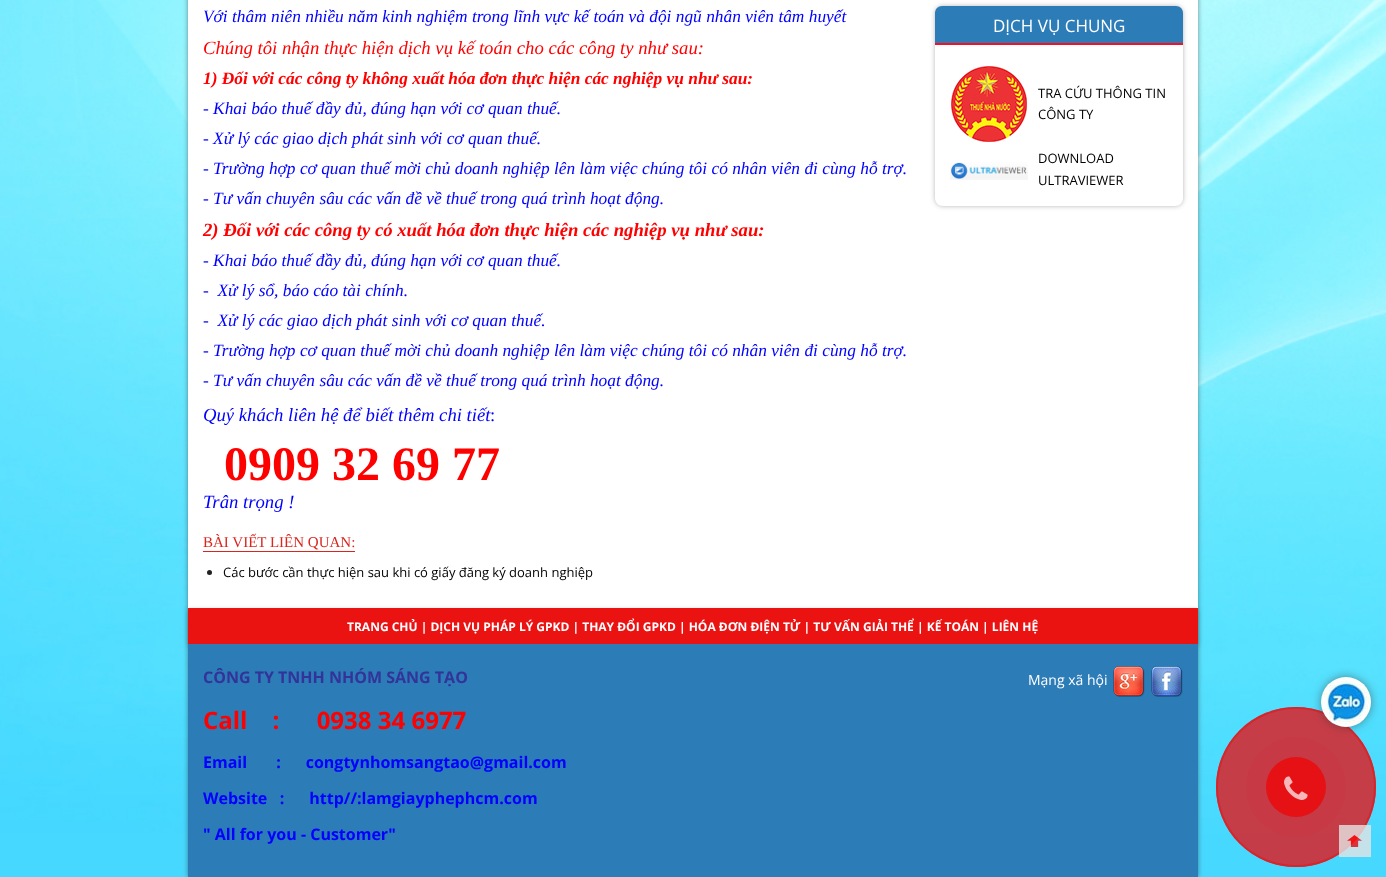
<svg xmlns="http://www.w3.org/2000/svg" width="1386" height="877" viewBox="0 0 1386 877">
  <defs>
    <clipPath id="clip1"><path d="M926 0H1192V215H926ZM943 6H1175C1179.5 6 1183 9.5 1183 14V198C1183 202.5 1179.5 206 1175 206H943C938.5 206 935 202.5 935 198V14C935 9.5 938.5 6 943 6Z" clip-rule="evenodd"/></clipPath>
  </defs>
  <rect width="100%" height="100%" fill="#47d8ff"/>
  <image x="0" y="0" width="1386" height="833" href="img/1.png"/>
  <path d="M188 -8h1010v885H188z" fill="#3232328c" filter="blur(2.5px)"/>
  <path d="M188 0h1010v608H188z" fill="#fff"/>
  <path d="M203 551h152v1H203z" fill="#da251d"/>
  <circle cx="209.5" cy="572.5" r="2.5" fill="#212121"/>
  <g clip-path="url(#clip1)">
    <rect x="935" y="6" width="248" height="200" rx="8" fill="#32323259" filter="blur(2.5px)"/>
  </g>
  <path d="M942 6H1176C1180 6 1183 9 1183 13V45H935V13C935 9 938 6 942 6Z" fill="#2c7cb8"/>
  <path d="M935 43h248v2H935z" fill="#fb0c22"/>
  <image x="951" y="65" width="76" height="77" href="img/2.png"/>
  <image x="950" y="162" width="78" height="18" href="img/3.png"/>
  <path d="M188 610h1010v36H188z" fill="#32323259" filter="blur(2.5px)"/>
  <path d="M188 608h1010v36H188z" fill="#eb1212"/>
  <path d="M188 644h1010v233H188z" fill="#2c7cb8"/>
  <image x="1113" y="666" width="32" height="31" href="img/4.png"/>
  <image x="1151" y="666" width="32" height="31" href="img/5.png"/>
  <circle cx="1296" cy="787" r="80" fill="#da2127d9"/>
  <circle cx="1296" cy="787" r="79" fill="none" stroke="#da2127d9" stroke-width="2"/>
  <circle cx="1296" cy="787" r="50" fill="#c73a45"/>
  <rect x="1321" y="677" width="50" height="50" rx="25" fill="#32323280" filter="blur(5px)"/>
  <image x="1321" y="677" width="50" height="50" href="img/6.png"/>
  <circle cx="1296" cy="787" r="30" fill="#e51115"/>
  <image x="1284" y="776" width="24" height="24" href="img/7.png"/>
  <image x="1339" y="825" width="32" height="32" href="img/8.png"/>
  <text x="203" y="22" font-family="Liberation Serif" font-size="17.35" font-style="italic" fill="#00f">Với thâm niên nhiều năm kinh nghiệm trong lĩnh vực kế toán và đội ngũ nhân viên tâm huyết</text>
  <text x="203" y="54" font-family="Liberation Serif" font-size="18.7" font-style="italic" fill="#f00">Chúng tôi nhận thực hiện dịch vụ kế toán cho các công ty như sau:</text>
  <text x="203" y="84" font-family="Liberation Serif" font-size="17.35" font-weight="bold" font-style="italic" fill="#f00">1) Đối với các công ty không xuất hóa đơn thực hiện các nghiệp vụ như sau:</text>
  <g font-family="Liberation Serif" font-size="17.35" font-style="italic" fill="#00f">
    <text x="203" y="114">- Khai báo thuế đầy đủ, đúng hạn với cơ quan thuế.</text>
    <text x="203" y="144">- Xử lý các giao dịch phát sinh với cơ quan thuế.</text>
    <text x="203" y="174">- Trường hợp cơ quan thuế mời chủ doanh nghiệp lên làm việc chúng tôi có nhân viên đi cùng hỗ trợ.</text>
    <text x="203" y="204">- Tư vấn chuyên sâu các vấn đề về thuế trong quá trình hoạt động.</text>
  </g>
  <text x="203" y="236" font-family="Liberation Serif" font-size="18.7" font-weight="bold" font-style="italic" fill="#f00">2) Đối với các công ty có xuất hóa đơn thực hiện các nghiệp vụ như sau:</text>
  <g font-family="Liberation Serif" font-size="17.35" font-style="italic" fill="#00f">
    <text x="203" y="266">- Khai báo thuế đầy đủ, đúng hạn với cơ quan thuế.</text>
    <text x="203" y="296" xml:space="preserve">-  Xử lý sổ, báo cáo tài chính.</text>
    <text x="203" y="326" xml:space="preserve">-  Xử lý các giao dịch phát sinh với cơ quan thuế.</text>
    <text x="203" y="356">- Trường hợp cơ quan thuế mời chủ doanh nghiệp lên làm việc chúng tôi có nhân viên đi cùng hỗ trợ.</text>
    <text x="203" y="386">- Tư vấn chuyên sâu các vấn đề về thuế trong quá trình hoạt động.</text>
  </g>
  <text x="203" y="421" font-family="Liberation Serif" font-size="18.7" font-style="italic" fill="#00f">Quý khách liên hệ để biết thêm chi tiết</text>
  <text x="490" y="421" font-family="Liberation Serif" font-size="18.7" fill="#00f">:</text>
  <text x="224" y="480" font-family="Liberation Serif" font-size="48" font-weight="bold" fill="#f00">0909 32 69 77</text>
  <text x="203" y="508" font-family="Liberation Serif" font-size="18.7" font-style="italic" fill="#00f">Trân trọng !</text>
  <text x="203" y="547" font-family="Liberation Serif" font-size="15" fill="#da251d">BÀI VIẾT LIÊN QUAN:</text>
  <text x="223" y="577" font-family="Open Sans" font-size="13" fill="#000">Các bước cần thực hiện sau khi có giấy đăng ký doanh nghiệp</text>
  <text x="993" y="32" font-family="Open Sans" font-size="17" fill="#fff">DỊCH VỤ CHUNG</text>
  <g font-family="Open Sans" font-size="13" fill="#000">
    <text x="1038" y="98">TRA CỨU THÔNG TIN</text>
    <text x="1038" y="119">CÔNG TY</text>
    <text x="1038" y="163">DOWNLOAD</text>
    <text x="1038" y="185">ULTRAVIEWER</text>
  </g>
  <text x="347" y="631" font-family="Open Sans" font-size="12" font-weight="bold" fill="#fff">TRANG CHỦ | DỊCH VỤ PHÁP LÝ GPKD | THAY ĐỔI GPKD | HÓA ĐƠN ĐIỆN TỬ | TƯ VẤN GIẢI THỂ | KẾ TOÁN | LIÊN HỆ</text>
  <text x="203" y="683" font-family="Open Sans" font-size="16" font-weight="bold" fill="#339">CÔNG TY TNHH NHÓM SÁNG TẠO</text>
  <text x="1028" y="685" font-family="Open Sans" font-size="14" fill="#fff">Mạng xã hội</text>
  <text x="203" y="729" font-family="Open Sans" font-size="24" font-weight="bold" fill="#f00" xml:space="preserve">Call    :      0938 34 6977</text>
  <g font-family="Open Sans" font-size="16" font-weight="bold" fill="#00f">
    <text x="203" y="768" xml:space="preserve">Email       :      congtynhomsangtao@gmail.com</text>
    <text x="203" y="804" xml:space="preserve">Website   :      http//:lamgiayphephcm.com</text>
    <text x="203" y="840">" All for you - Customer"</text>
  </g>
</svg>
